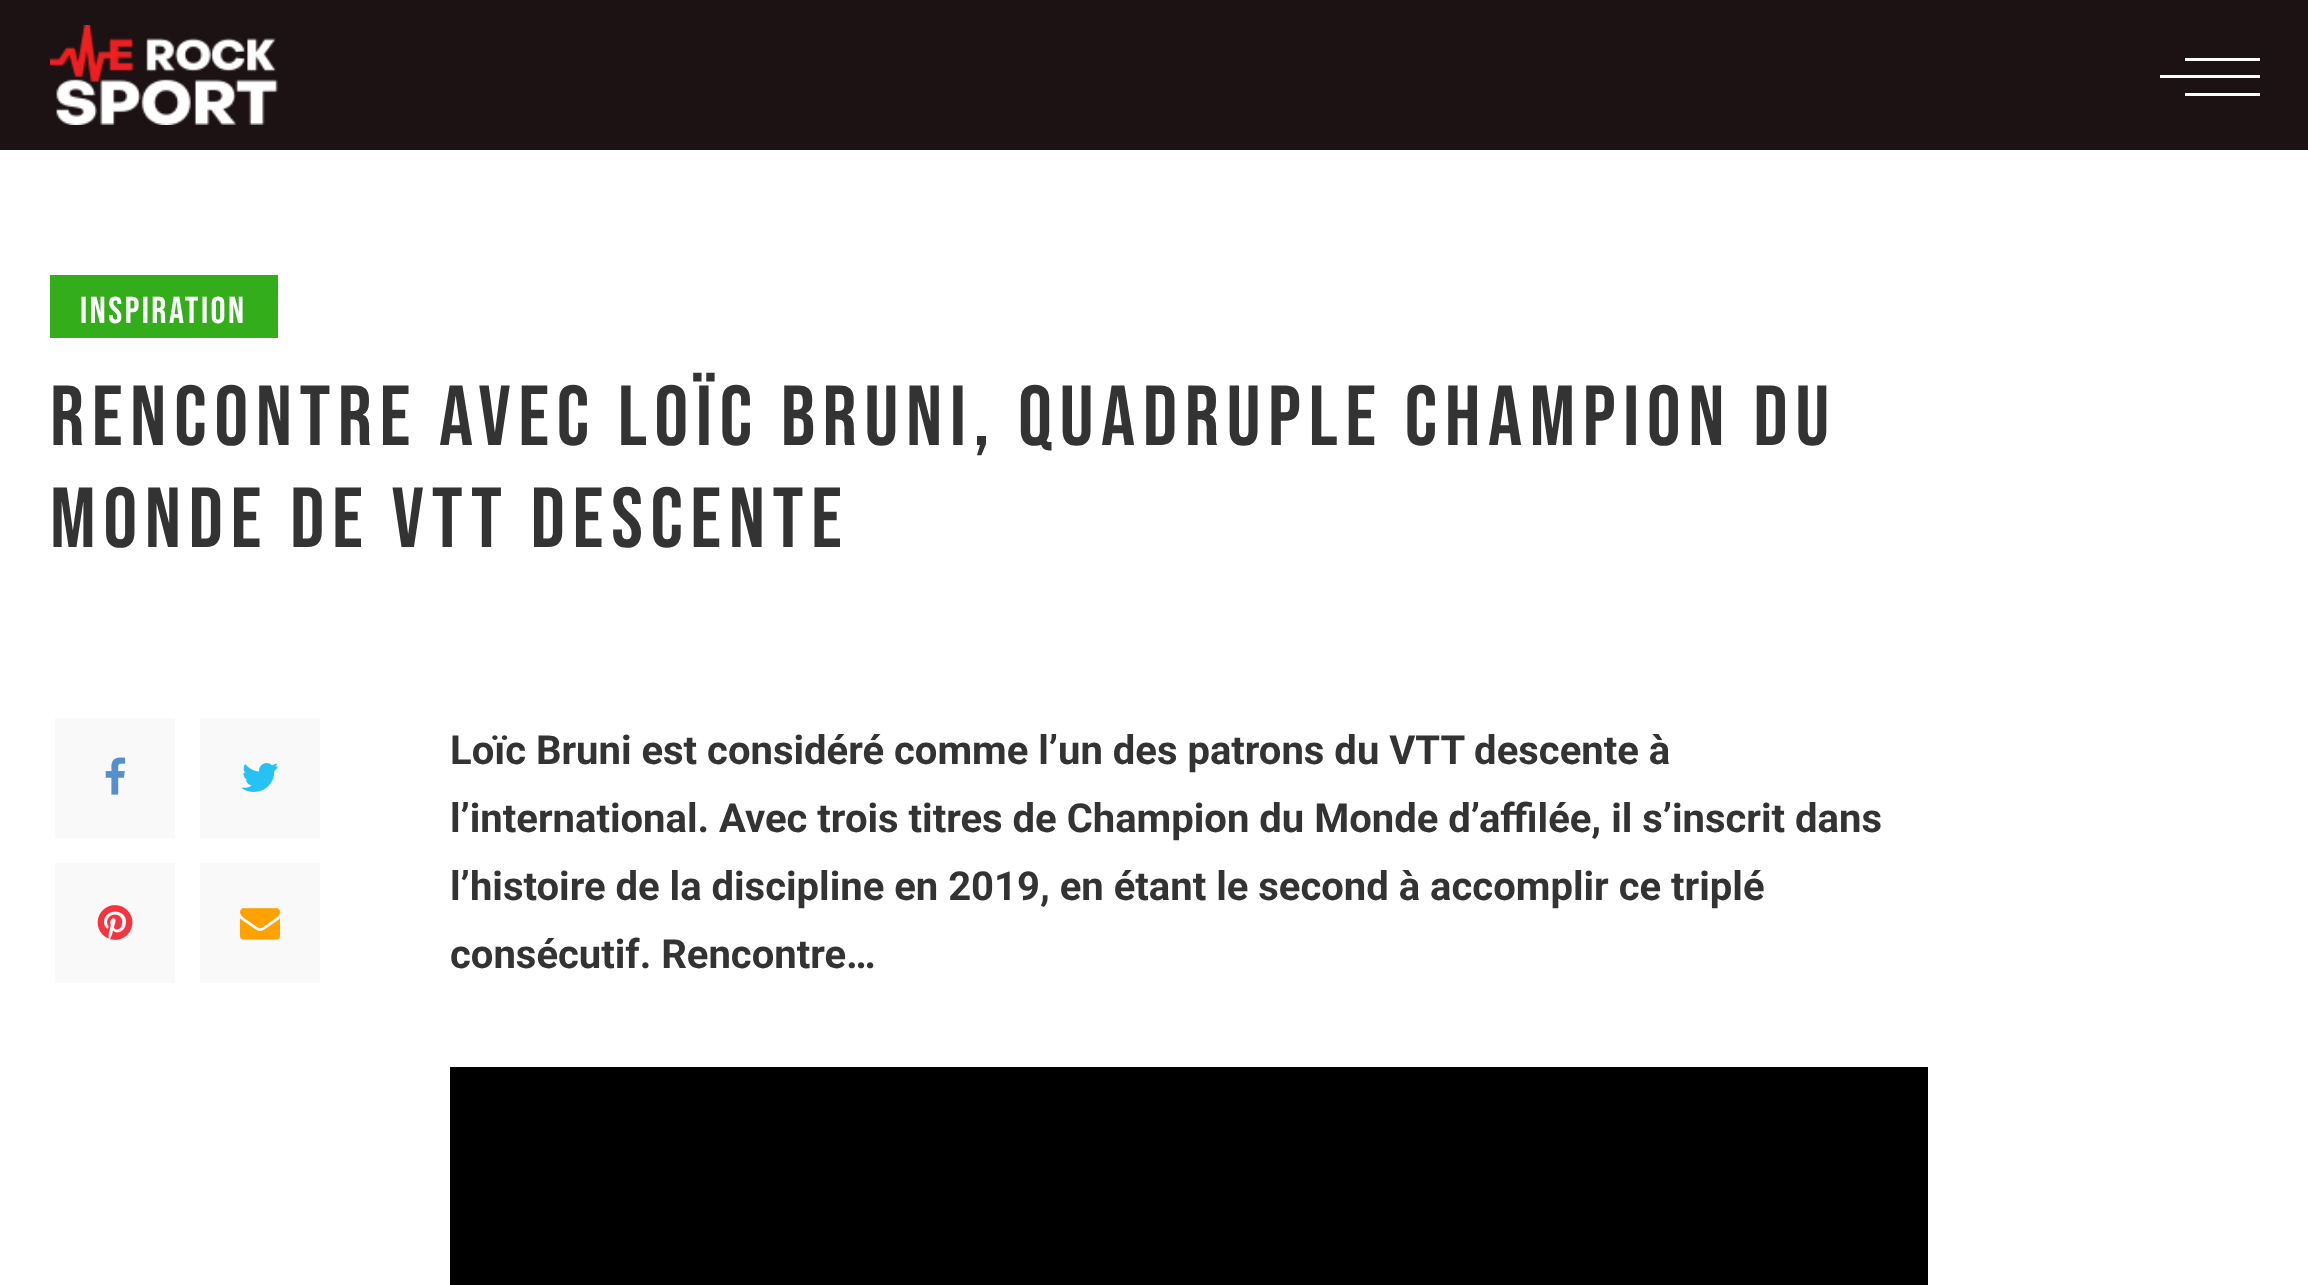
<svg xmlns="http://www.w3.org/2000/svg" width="2308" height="1285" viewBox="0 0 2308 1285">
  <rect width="100%" height="100%" fill="#fff"/>
  <path d="M0 0h2308v150H0z" fill="#1c1213"/>
  <image x="50" y="25" width="228" height="100" href="img/1.png"/>
  <path d="M2160 75h100v3H2160z" fill="#fff"/>
  <path d="M2185 58h75v3H2185z" fill="#fff"/>
  <path d="M2185 93h75v3H2185z" fill="#fff"/>
  <path d="M50 275h228v63H50z" fill="#34ad1b"/>
  <path d="M55 718h120v120H55z" fill="#f9f9f9"/>
  <image x="105" y="757" width="20" height="38" href="img/2.png"/>
  <path d="M200 718h120v120H200z" fill="#f9f9f9"/>
  <image x="242" y="763" width="36" height="29" href="img/3.png"/>
  <path d="M55 863h120v120H55z" fill="#f9f9f9"/>
  <image x="97" y="905" width="36" height="35" href="img/4.png"/>
  <path d="M200 863h120v120H200z" fill="#f9f9f9"/>
  <image x="240" y="908" width="40" height="32" href="img/5.png"/>
  <path d="M450 1067h1478v218H450z" fill="#000"/>
  <text x="80" y="323" font-family="Bebas Neue" font-size="37.5" letter-spacing="2.5" fill="#fff">INSPIRATION</text>
  <g font-family="Bebas Neue" font-size="85" letter-spacing="7.5" fill="#333">
    <text x="50" y="445">RENCONTRE AVEC LOÏC BRUNI, QUADRUPLE CHAMPION DU</text>
    <text x="50" y="547">MONDE DE VTT DESCENTE</text>
  </g>
  <g font-family="Roboto" font-size="40" font-weight="bold" fill="#333">
    <text x="450" y="764">Loïc Bruni est considéré comme l’un des patrons du VTT descente à</text>
    <text x="450" y="832">l’international. Avec trois titres de Champion du Monde d’affilée, il s’inscrit dans</text>
    <text x="450" y="900">l’histoire de la discipline en 2019, en étant le second à accomplir ce triplé</text>
    <text x="450" y="968">consécutif. Rencontre…</text>
  </g>
</svg>
